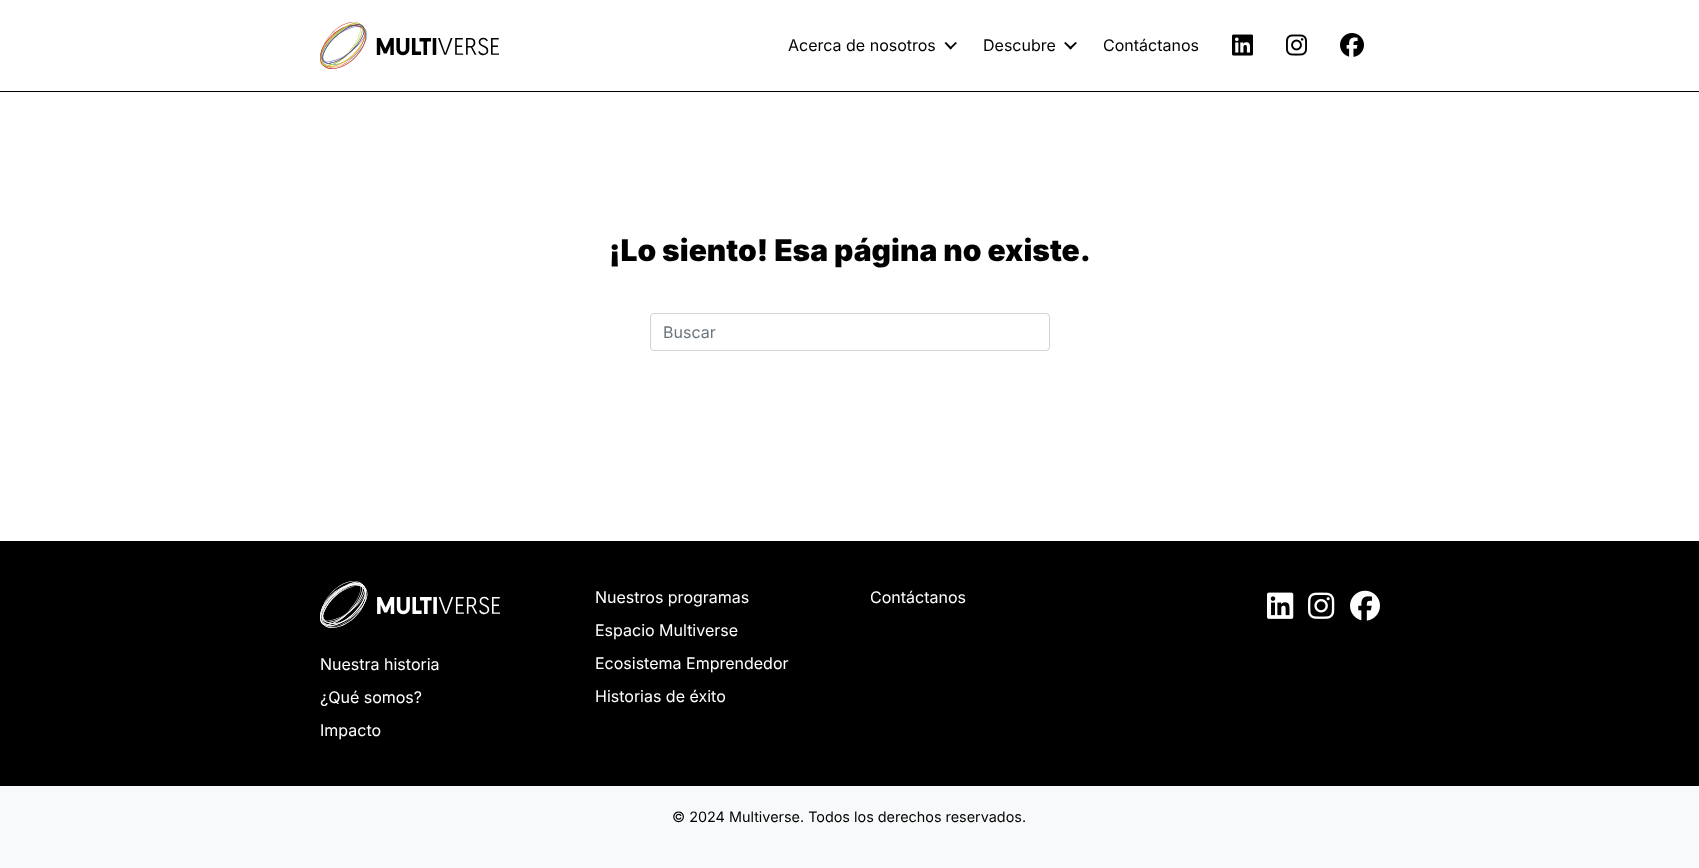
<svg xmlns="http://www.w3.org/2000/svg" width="1699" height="868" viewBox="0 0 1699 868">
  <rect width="100%" height="100%" fill="#f8f9fa"/>
  <path d="M0 0h1699v91H0z" fill="#fff"/>
  <path d="M0 91h1699v1H0z" fill="#000"/>
  <image x="320" y="22" width="179" height="47" href="img/1.png"/>
  <path d="M955.5 42L957 43L950.5 49.5L949.5 48Z" fill="#000"/>
  <path d="M946 42L952 48L950.5 49.5L944.5 43Z" fill="#000"/>
  <path d="M1075.5 42L1077 43L1070.5 49.5L1069 48Z" fill="#000"/>
  <path d="M1065.5 42L1072 48L1070.5 49.5L1064 43Z" fill="#000"/>
  <image x="1232" y="34" width="21" height="22" href="img/2.png"/>
  <image x="1286" y="34" width="21" height="22" href="img/3.png"/>
  <image x="1340" y="33" width="24" height="24" href="img/4.png"/>
  <path d="M0 92h1699v449H0z" fill="#fff"/>
  <rect x="650.5" y="313.5" width="399" height="37" rx="3.5" fill="none" stroke="#ced4da"/>
  <path d="M0 541h1699v245H0z" fill="#000"/>
  <image x="320" y="581" width="180" height="47" href="img/5.png"/>
  <image x="1267" y="592" width="27" height="27" href="img/6.png"/>
  <image x="1308" y="592" width="27" height="27" href="img/7.png"/>
  <image x="1350" y="590" width="30" height="31" href="img/8.png"/>
  <g font-family="Inter" font-size="16" fill="#000">
    <text x="788" y="51">Acerca de nosotros</text>
    <text x="983" y="51">Descubre</text>
    <text x="1103" y="51">Contáctanos</text>
  </g>
  <text x="609" y="261" font-family="Inter" font-size="30" font-weight="900" fill="#000">¡Lo siento! Esa página no existe.</text>
  <text x="663" y="338" font-family="Inter" font-size="16" fill="#6c757d">Buscar</text>
  <g font-family="Inter" font-size="16" fill="#fff">
    <text x="320" y="670">Nuestra historia</text>
    <text x="320" y="703">¿Qué somos?</text>
    <text x="320" y="736">Impacto</text>
    <text x="595" y="603">Nuestros programas</text>
    <text x="595" y="636">Espacio Multiverse</text>
    <text x="595" y="669">Ecosistema Emprendedor</text>
    <text x="595" y="702">Historias de éxito</text>
    <text x="870" y="603">Contáctanos</text>
  </g>
  <text x="672" y="822" font-family="Inter" font-size="14.4" fill="#000">© 2024 Multiverse. Todos los derechos reservados.</text>
</svg>
